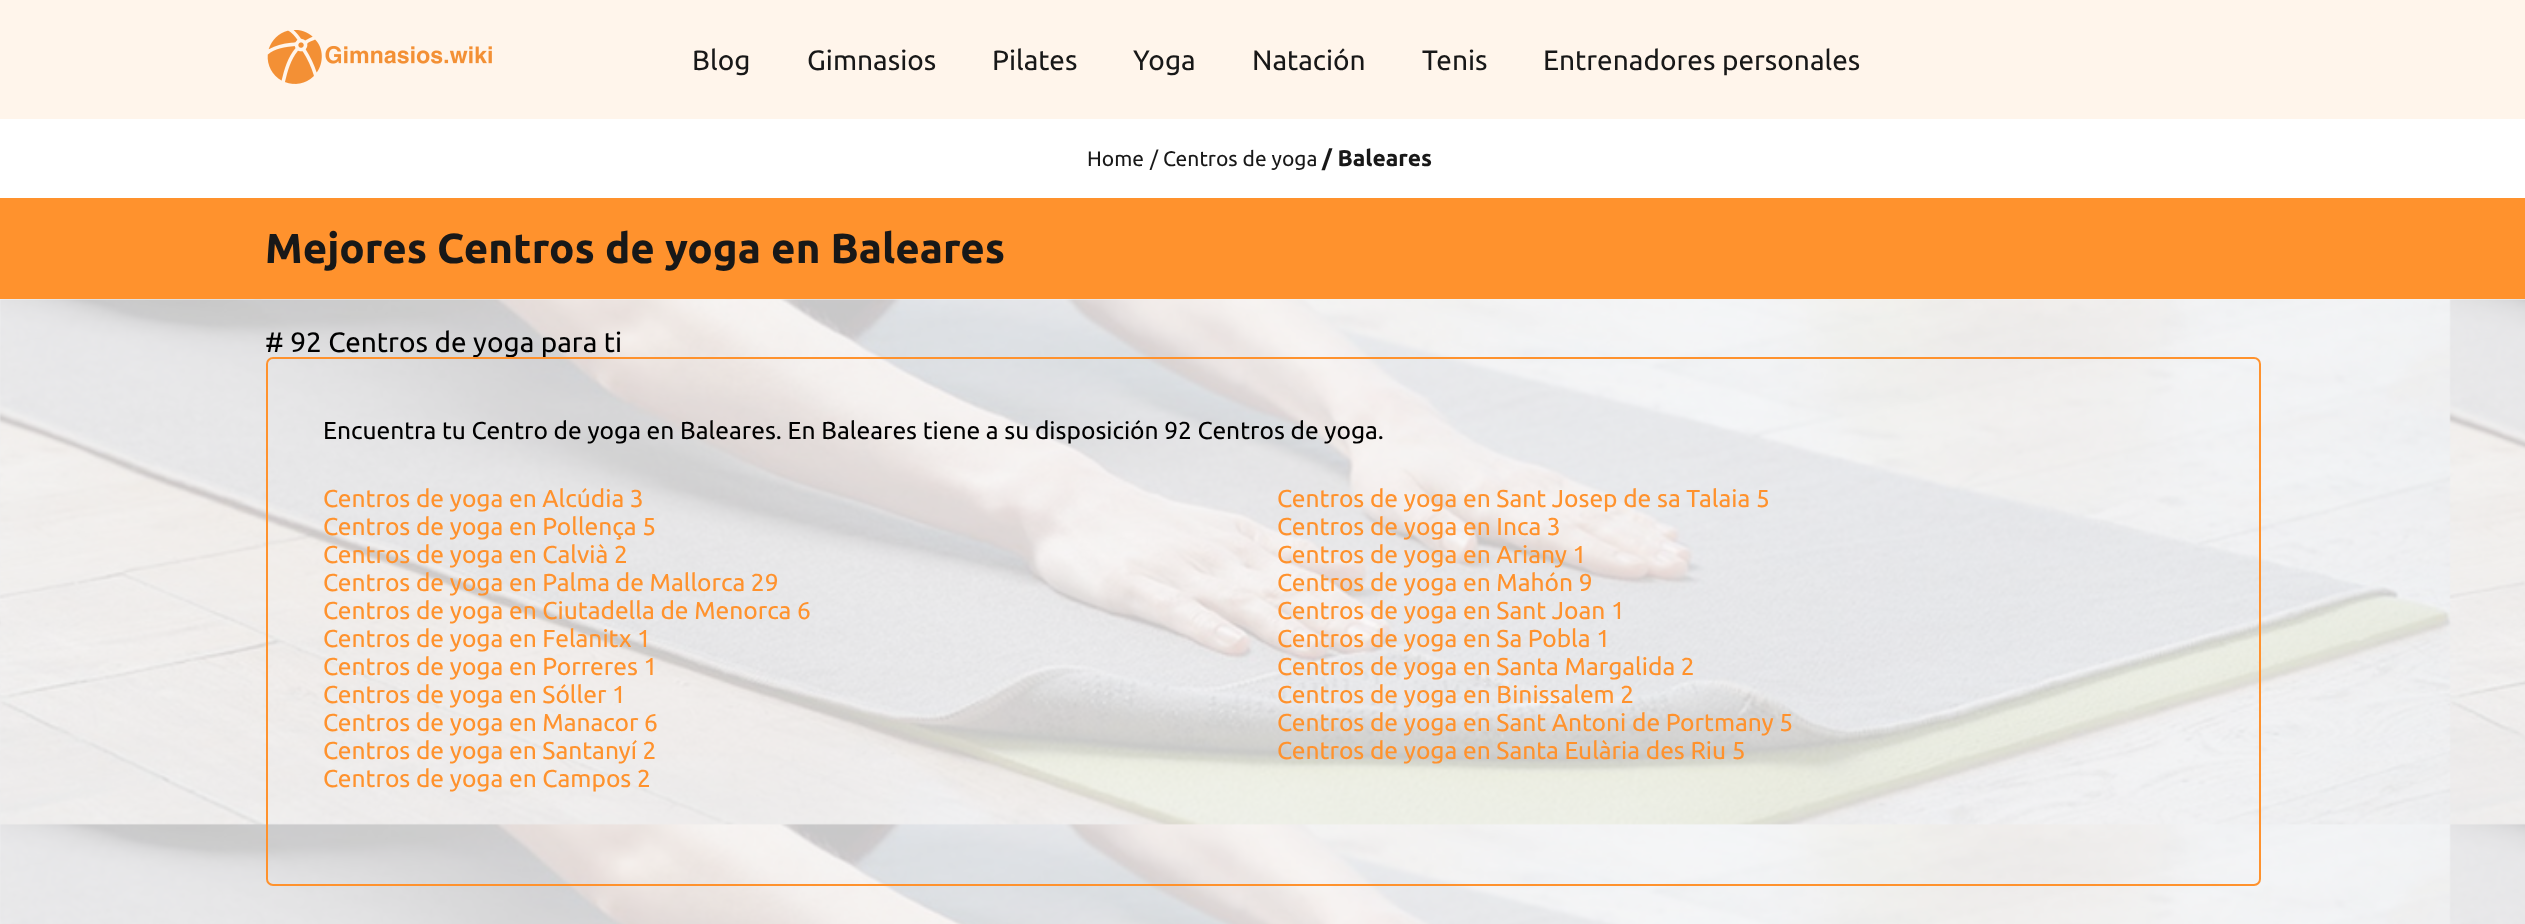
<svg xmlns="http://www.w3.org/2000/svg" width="2525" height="924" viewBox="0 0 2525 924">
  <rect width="100%" height="100%" fill="#fff"/>
  <path d="M0 0h2525v119H0z" fill="#fff5eb"/>
  <image x="267" y="30" width="225" height="54" href="img/1.png"/>
  <path d="M0 198h2525v101H0z" fill="#ff922d"/>
  <image x="0" y="299" width="2525" height="625" href="img/2.png"/>
  <g font-family="Ubuntu" font-size="28" fill="#181818">
    <text x="692" y="70">Blog</text>
    <text x="807" y="70">Gimnasios</text>
    <text x="992" y="70">Pilates</text>
    <text x="1133" y="70">Yoga</text>
    <text x="1252" y="70">Natación</text>
    <text x="1422" y="70">Tenis</text>
    <text x="1543" y="70">Entrenadores personales</text>
  </g>
  <g font-family="Ubuntu" font-size="21" fill="#181818">
    <text x="1087" y="166">Home</text>
    <text x="1150" y="166">/ Centros de yoga</text>
  </g>
  <text x="1322" y="166" font-family="Ubuntu" font-size="22.75" font-weight="bold" fill="#181818">/ Baleares</text>
  <text x="265" y="263" font-family="Ubuntu" font-size="42" font-weight="bold" fill="#181818">Mejores Centros de yoga en Baleares</text>
  <text x="265" y="352" font-family="Ubuntu" font-size="28" fill="#000"># 92 Centros de yoga para ti</text>
  <rect x="267" y="358" width="1993" height="527" rx="6" fill="none" stroke="#ff922d" stroke-width="2"/>
  <text x="323" y="439" font-family="Ubuntu" font-size="24.5" fill="#000">Encuentra tu Centro de yoga en Baleares. En Baleares tiene a su disposición 92 Centros de yoga.</text>
  <g font-family="Ubuntu" font-size="24.5" fill="#ff922d">
    <text x="323" y="507">Centros de yoga en Alcúdia 3</text>
    <text x="1277" y="507">Centros de yoga en Sant Josep de sa Talaia 5</text>
    <text x="323" y="535">Centros de yoga en Pollença 5</text>
    <text x="1277" y="535">Centros de yoga en Inca 3</text>
    <text x="323" y="563">Centros de yoga en Calvià 2</text>
    <text x="1277" y="563">Centros de yoga en Ariany 1</text>
    <text x="323" y="591">Centros de yoga en Palma de Mallorca 29</text>
    <text x="1277" y="591">Centros de yoga en Mahón 9</text>
    <text x="323" y="619">Centros de yoga en Ciutadella de Menorca 6</text>
    <text x="1277" y="619">Centros de yoga en Sant Joan 1</text>
    <text x="323" y="647">Centros de yoga en Felanitx 1</text>
    <text x="1277" y="647">Centros de yoga en Sa Pobla 1</text>
    <text x="323" y="675">Centros de yoga en Porreres 1</text>
    <text x="1277" y="675">Centros de yoga en Santa Margalida 2</text>
    <text x="323" y="703">Centros de yoga en Sóller 1</text>
    <text x="1277" y="703">Centros de yoga en Binissalem 2</text>
    <text x="323" y="731">Centros de yoga en Manacor 6</text>
    <text x="1277" y="731">Centros de yoga en Sant Antoni de Portmany 5</text>
    <text x="323" y="759">Centros de yoga en Santanyí 2</text>
    <text x="1277" y="759">Centros de yoga en Santa Eulària des Riu 5</text>
    <text x="323" y="787">Centros de yoga en Campos 2</text>
  </g>
</svg>
